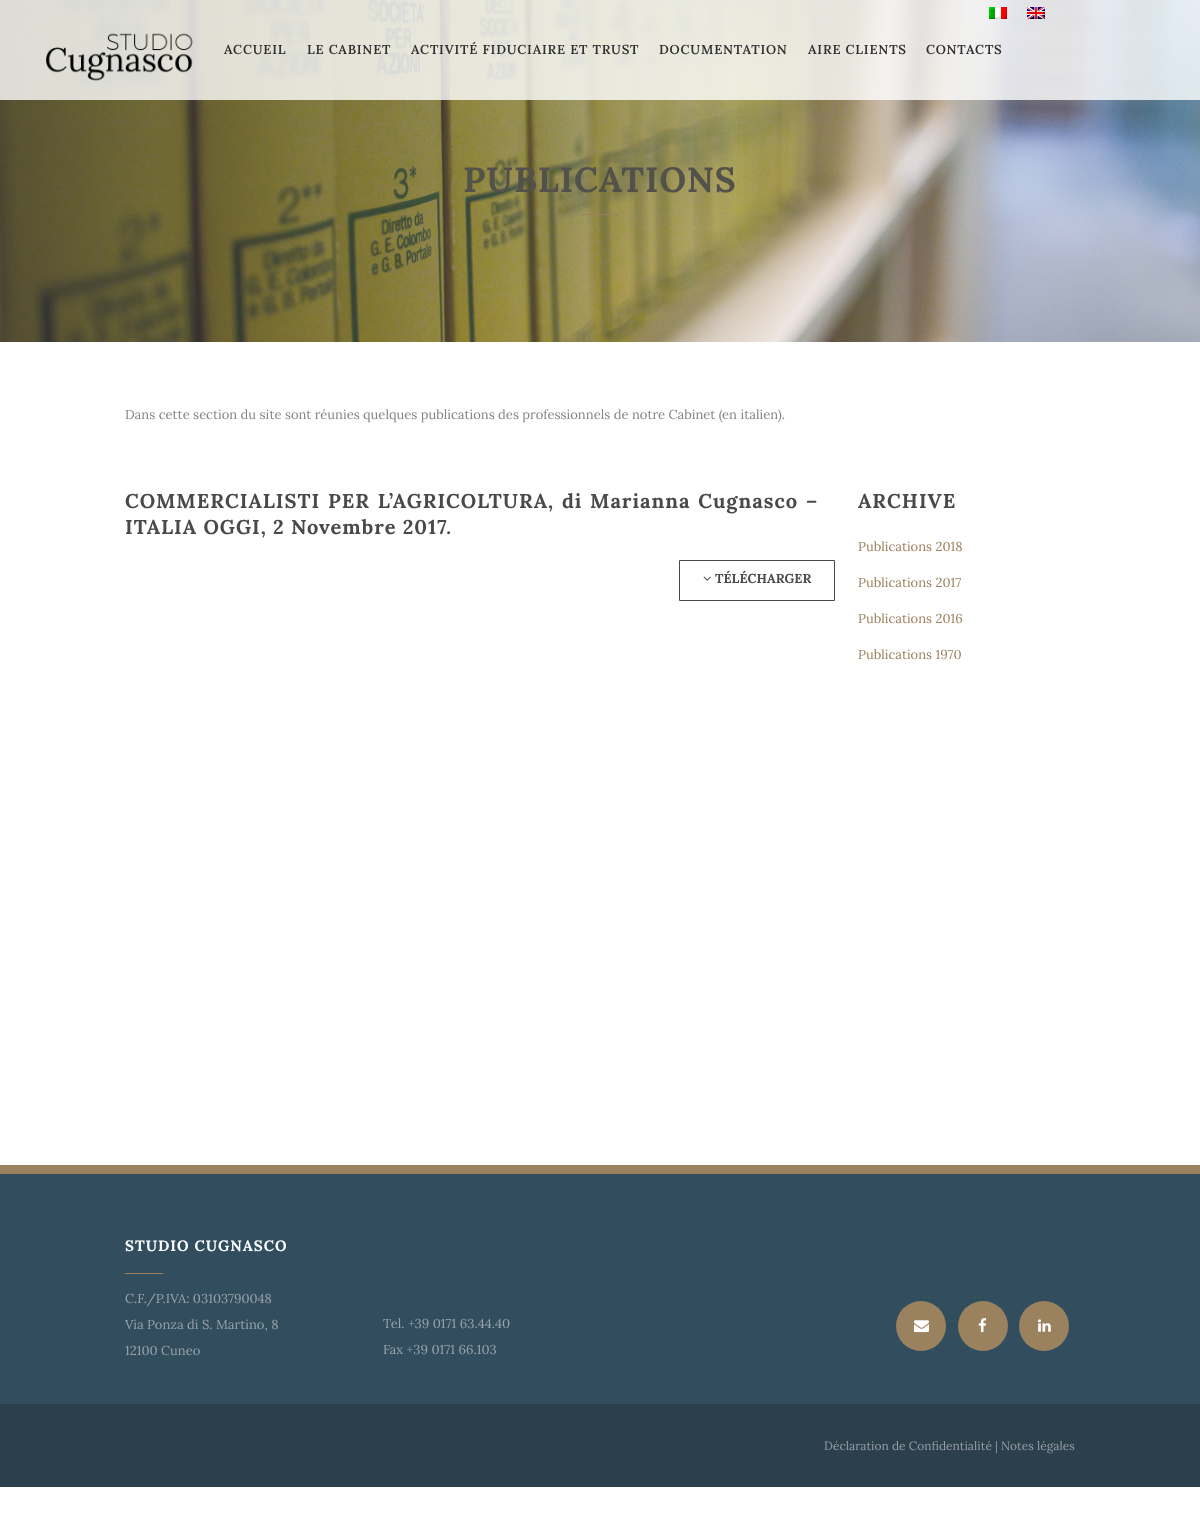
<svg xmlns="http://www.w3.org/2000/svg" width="1200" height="1520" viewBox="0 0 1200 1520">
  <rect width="100%" height="100%" fill="#fff"/>
  <image x="0" y="0" width="1200" height="342" href="img/4.png"/>
  <path d="M0 0h1200v100H0z" fill="#ffffffcc"/>
  <image x="989" y="7" width="18" height="12" href="img/1.png"/>
  <image x="1027" y="7" width="18" height="12" href="img/2.png"/>
  <image x="46" y="33" width="147" height="48" href="img/3.png"/>
  <path d="M581 214h38v1H581z" fill="#9b825e"/>
  <path d="M679.5 560.5h155v40H679.5z" fill="none" stroke="#494949"/>
  <image x="703" y="576" width="8" height="5" href="img/5.png"/>
  <path d="M0 1174h1200v230H0z" fill="#314d5e"/>
  <path d="M0 1165h1200v9H0z" fill="#9b825e"/>
  <path d="M125 1273h38v1H125z" fill="#9b825e"/>
  <circle cx="921" cy="1326" r="25" fill="#9b825e"/>
  <image x="914" y="1320" width="15" height="13" href="img/6.png"/>
  <circle cx="983" cy="1326" r="25" fill="#9b825e"/>
  <image x="978" y="1318" width="9" height="15" href="img/7.png"/>
  <circle cx="1044" cy="1326" r="25" fill="#9b825e"/>
  <image x="1038" y="1319" width="13" height="13" href="img/8.png"/>
  <path d="M0 1404h1200v83H0z" fill="#2b3f4d"/>
  <g font-family="Lora" font-size="13" font-weight="600" letter-spacing="0.8" fill="#303030">
    <text x="224" y="54">ACCUEIL</text>
    <text x="307" y="54">LE CABINET</text>
    <text x="411" y="54">ACTIVITÉ FIDUCIAIRE ET TRUST</text>
    <text x="659" y="54">DOCUMENTATION</text>
    <text x="808" y="54">AIRE CLIENTS</text>
    <text x="926" y="54">CONTACTS</text>
  </g>
  <text x="463" y="192" font-family="Lora" font-size="35" font-weight="bold" letter-spacing="1" fill="#53524a">PUBLICATIONS</text>
  <text x="125" y="419" font-family="Lora" font-size="13" fill="#858483">Dans cette section du site sont réunies quelques publications des professionnels de notre Cabinet (en italien).</text>
  <g font-family="Lora" font-size="20" font-weight="bold" letter-spacing="1" fill="#494949">
    <text x="125" y="508" word-spacing="1.5">COMMERCIALISTI PER L’AGRICOLTURA, di Marianna Cugnasco –</text>
    <text x="125" y="534">ITALIA OGGI, 2 Novembre 2017.</text>
  </g>
  <text x="715" y="583" font-family="Lora" font-size="13" font-weight="bold" fill="#494949">TÉLÉCHARGER</text>
  <text x="858" y="508" font-family="Lora" font-size="20" font-weight="bold" letter-spacing="1" fill="#494949">ARCHIVE</text>
  <g font-family="Lora" font-size="13" fill="#9b825e">
    <text x="858" y="551">Publications 2018</text>
    <text x="858" y="587">Publications 2017</text>
    <text x="858" y="623">Publications 2016</text>
    <text x="858" y="659">Publications 1970</text>
  </g>
  <text x="125" y="1251" font-family="Lora" font-size="15" font-weight="bold" letter-spacing="1" fill="#fff">STUDIO CUGNASCO</text>
  <g font-family="Lora" font-size="13" fill="#99a3aa">
    <text x="125" y="1303">C.F./P.IVA: 03103790048</text>
    <text x="125" y="1329">Via Ponza di S. Martino, 8</text>
    <text x="125" y="1355">12100 Cuneo</text>
    <text x="383" y="1328">Tel. +39 0171 63.44.40</text>
    <text x="383" y="1354">Fax +39 0171 66.103</text>
  </g>
  <text x="824" y="1450" font-family="Lora" font-size="12" fill="#979ea3">Déclaration de Confidentialité | Notes légales</text>
</svg>
